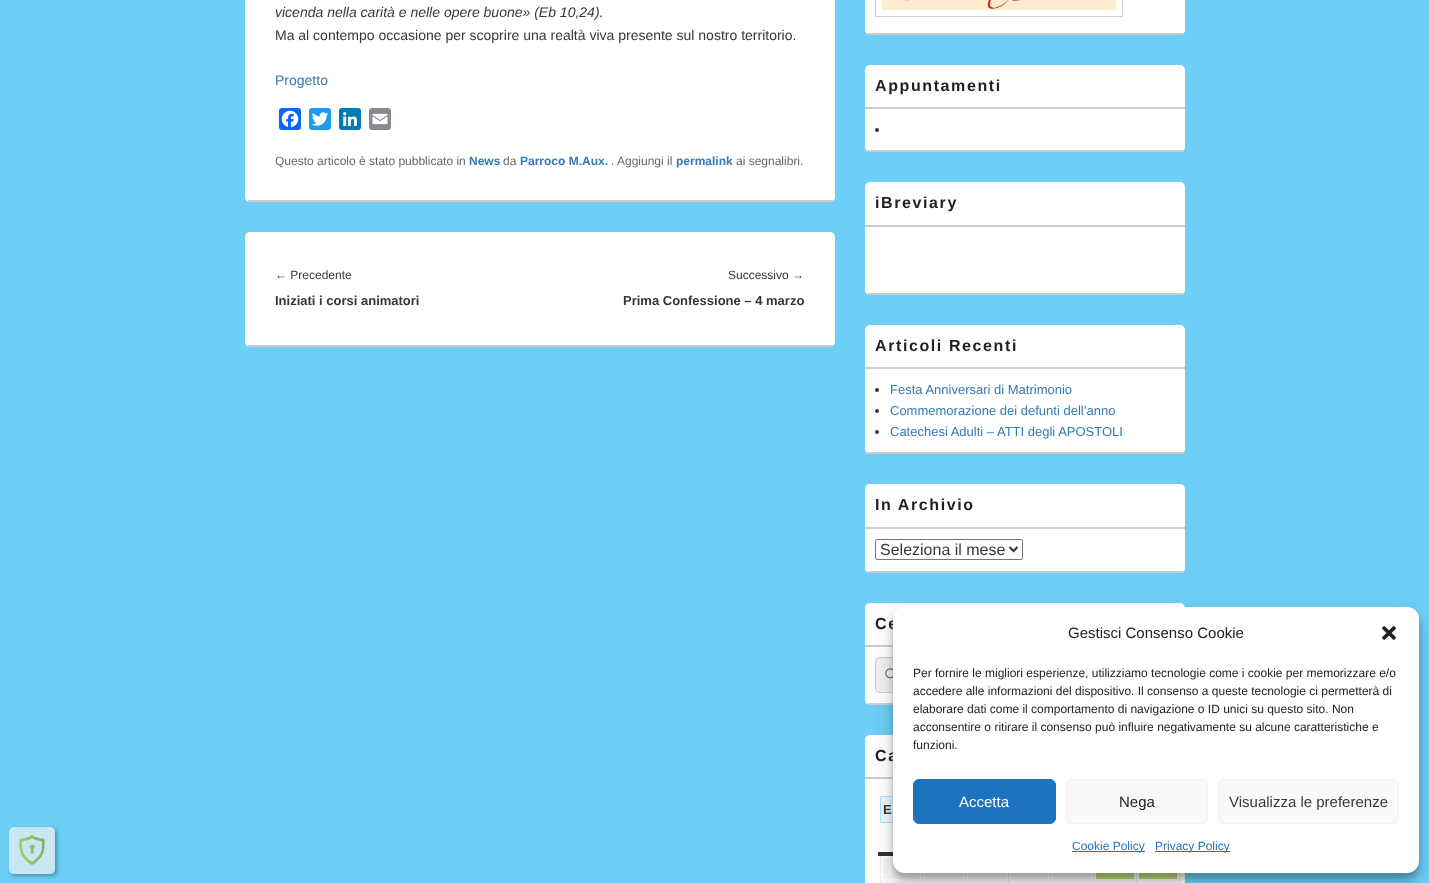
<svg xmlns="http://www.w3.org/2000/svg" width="1429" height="883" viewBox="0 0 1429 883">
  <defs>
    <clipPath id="clip1"><path d="M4 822H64V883H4ZM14 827H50C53 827 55 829 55 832V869C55 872 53 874 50 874H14C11 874 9 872 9 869V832C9 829 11 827 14 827Z" clip-rule="evenodd"/></clipPath>
  </defs>
  <rect width="100%" height="100%" fill="#6dcff6"/>
  <g clip-path="url(#clip1)">
    <rect x="11" y="829" width="46" height="47" rx="5" fill="#213e4a78" filter="blur(2px)"/>
  </g>
  <rect x="9" y="827" width="46" height="47" rx="5" fill="#c9e7f3fc"/>
  <image x="19" y="835" width="26" height="30" href="img/1.png"/>
  <rect x="245" y="-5" width="590" height="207" rx="5" fill="#fff"/>
  <path d="M248 200h585v2H248z" fill="#ccc"/>
  <rect x="279" y="108" width="22" height="22" rx="3" fill="#0866ff"/>
  <image x="281" y="110" width="18" height="18" href="img/2.png"/>
  <rect x="309" y="108" width="22" height="22" rx="3" fill="#1d9bf0"/>
  <image x="312" y="112" width="16" height="14" href="img/3.png"/>
  <rect x="339" y="108" width="22" height="22" rx="3" fill="#007bb5"/>
  <image x="343" y="112" width="14" height="14" href="img/4.png"/>
  <rect x="369" y="108" width="22" height="22" rx="3" fill="#888990"/>
  <image x="372" y="113" width="16" height="12" href="img/5.png"/>
  <rect x="245" y="232" width="590" height="115" rx="5" fill="#fff"/>
  <path d="M248 345h585v2H248z" fill="#ccc"/>
  <rect x="865" y="-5" width="320" height="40" rx="5" fill="#fff"/>
  <path d="M868 33h315v2H868z" fill="#ccc"/>
  <path d="M875.5 -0.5h247v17H875.5z" fill="none" stroke="#ccc"/>
  <image x="882" y="0" width="234" height="10" href="img/6.png"/>
  <rect x="865" y="65" width="320" height="87" rx="5" fill="#fff"/>
  <path d="M868 150h315v2H868z" fill="#ccc"/>
  <path d="M865 107h320v2H865z" fill="#ccc"/>
  <circle cx="877" cy="130" r="2" fill="#373737"/>
  <rect x="865" y="182" width="320" height="113" rx="5" fill="#fff"/>
  <path d="M868 293h315v2H868z" fill="#ccc"/>
  <path d="M865 225h320v2H865z" fill="#ccc"/>
  <rect x="865" y="325" width="320" height="129" rx="5" fill="#fff"/>
  <path d="M868 452h315v2H868z" fill="#ccc"/>
  <path d="M865 367h320v2H865z" fill="#ccc"/>
  <circle cx="877" cy="390" r="2" fill="#373737"/>
  <circle cx="877" cy="411" r="2" fill="#373737"/>
  <circle cx="877" cy="432" r="2" fill="#373737"/>
  <rect x="865" y="484" width="320" height="89" rx="5" fill="#fff"/>
  <path d="M868 571h315v2H868z" fill="#ccc"/>
  <path d="M865 527h320v2H865z" fill="#ccc"/>
  <rect x="875.5" y="539.5" width="147" height="20" rx="1.5" fill="none" stroke="#767676"/>
  <path d="M1009.5 547L1013.5 551L1017.5 547" fill="none" stroke="#373737" stroke-width="2"/>
  <rect x="865" y="603" width="320" height="102" rx="5" fill="#fff"/>
  <path d="M868 703h25v2H868z" fill="#ccc"/>
  <path d="M865 645h28v2H865z" fill="#ccc"/>
  <rect x="875.5" y="657.5" width="299" height="35" rx="4.5" fill="#f0f0f0" stroke="#ccc"/>
  <image x="885" y="668" width="8" height="11" href="img/7.png"/>
  <rect x="865" y="735" width="320" height="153" rx="5" fill="#fff"/>
  <path d="M865 777h28v2H865z" fill="#ccc"/>
  <path d="M881 797h12v25H881z" fill="#edf7ff"/>
  <path d="M880.5 796.5h299v26H880.5z" fill="none" stroke="#a9e3ff"/>
  <path d="M1136 881h44v1H1136z" fill="#eee"/>
  <path d="M1136 881h1v2H1136z" fill="#eee"/>
  <path d="M1093 881h44v1H1093z" fill="#eee"/>
  <path d="M1093 881h1v2H1093z" fill="#eee"/>
  <path d="M1050 881h44v1H1050z" fill="#eee"/>
  <path d="M1050 881h1v2H1050z" fill="#eee"/>
  <path d="M1008 881h43v1H1008z" fill="#eee"/>
  <path d="M1008 881h1v2H1008z" fill="#eee"/>
  <path d="M965 881h44v1H965z" fill="#eee"/>
  <path d="M965 881h1v2H965z" fill="#eee"/>
  <path d="M922 881h44v1H922z" fill="#eee"/>
  <path d="M922 881h1v2H922z" fill="#eee"/>
  <path d="M880 881h43v1H880z" fill="#eee"/>
  <path d="M880 854h1v29H880z" fill="#eee"/>
  <path d="M878 852h15v4H878z" fill="#313233"/>
  <path d="M1179 873h1v10H1179z" fill="#eee"/>
  <path d="M883 858h37v21H883z" fill="#f6f6f6"/>
  <path d="M922 873h1v9H922z" fill="#eee"/>
  <path d="M925 873h38v6H925z" fill="#f6f6f6"/>
  <path d="M965 873h1v9H965z" fill="#eee"/>
  <path d="M968 873h38v6H968z" fill="#f6f6f6"/>
  <path d="M1008 873h1v9H1008z" fill="#eee"/>
  <path d="M1011 873h37v6H1011z" fill="#f6f6f6"/>
  <path d="M1050 873h1v9H1050z" fill="#eee"/>
  <path d="M1053 873h38v6H1053z" fill="#f6f6f6"/>
  <path d="M1093 873h1v9H1093z" fill="#eee"/>
  <path d="M1096 873h38v6H1096z" fill="#bd7"/>
  <path d="M1136 873h1v9H1136z" fill="#eee"/>
  <path d="M1139 873h38v6H1139z" fill="#bd7"/>
  <rect x="893" y="613" width="526" height="266" rx="12" fill="#0000003b" filter="blur(3px)"/>
  <rect x="893" y="617" width="526" height="266" rx="12" fill="#00000030" filter="blur(10px)"/>
  <text x="275" y="17" font-family="Liberation Sans" font-size="14" font-style="italic" fill="#373737">vicenda nella carità e nelle opere buone» (Eb 10,24).</text>
  <text x="275" y="40" font-family="Liberation Sans" font-size="14" fill="#373737">Ma al contempo occasione per scoprire una realtà viva presente sul nostro territorio.</text>
  <text x="275" y="85" font-family="Liberation Sans" font-size="14" fill="#337ab7">Progetto</text>
  <text x="275" y="165" font-family="Liberation Sans" font-size="12" fill="#666">Questo articolo è stato pubblicato in</text>
  <text x="469" y="165" font-family="Liberation Sans" font-size="12" font-weight="bold" fill="#337ab7">News</text>
  <text x="503" y="165" font-family="Liberation Sans" font-size="12" fill="#666">da</text>
  <text x="520" y="165" font-family="Liberation Sans" font-size="12" font-weight="bold" fill="#337ab7">Parroco M.Aux.</text>
  <text x="611" y="165" font-family="Liberation Sans" font-size="12" fill="#666">. Aggiungi il</text>
  <text x="676" y="165" font-family="Liberation Sans" font-size="12" font-weight="bold" fill="#337ab7">permalink</text>
  <text x="736" y="165" font-family="Liberation Sans" font-size="12" fill="#666">ai segnalibri.</text>
  <text x="275" y="279" font-family="Liberation Sans" font-size="12" fill="#373737">← Precedente</text>
  <text x="275" y="305" font-family="Liberation Sans" font-size="13" font-weight="bold" fill="#373737">Iniziati i corsi animatori</text>
  <text x="728" y="279" font-family="Liberation Sans" font-size="12" fill="#373737">Successivo →</text>
  <text x="623" y="305" font-family="Liberation Sans" font-size="13" font-weight="bold" fill="#373737">Prima Confessione – 4 marzo</text>
  <g font-family="Liberation Sans" font-size="16" font-weight="bold" letter-spacing="1.6" fill="#222">
    <text x="875" y="91">Appuntamenti</text>
    <text x="875" y="208">iBreviary</text>
    <text x="875" y="351">Articoli Recenti</text>
  </g>
  <g font-family="Liberation Sans" font-size="13" fill="#337ab7">
    <text x="890" y="394">Festa Anniversari di Matrimonio</text>
    <text x="890" y="415">Commemorazione dei defunti dell’anno</text>
    <text x="890" y="436">Catechesi Adulti – ATTI degli APOSTOLI</text>
  </g>
  <text x="875" y="510" font-family="Liberation Sans" font-size="16" font-weight="bold" letter-spacing="1.6" fill="#222">In Archivio</text>
  <text x="880" y="555" font-family="Liberation Sans" font-size="16" fill="#373737">Seleziona il mese</text>
  <g font-family="Liberation Sans" font-size="16" font-weight="bold" letter-spacing="1.6" fill="#222">
    <text x="875" y="629">Ce</text>
    <text x="875" y="761">Ca</text>
  </g>
  <text x="883" y="814" font-family="Liberation Sans" font-size="13" font-weight="bold" fill="#373737">E</text>
  <rect x="893" y="607" width="526" height="266" rx="12" fill="#fff"/>
  <text x="1068" y="638" font-family="Liberation Sans" font-size="15" fill="#222">Gestisci Consenso Cookie</text>
  <image x="1382" y="626" width="14" height="14" href="img/8.png"/>
  <g font-family="Liberation Sans" font-size="12" fill="#222">
    <text x="913" y="677">Per fornire le migliori esperienze, utilizziamo tecnologie come i cookie per memorizzare e/o</text>
    <text x="913" y="695">accedere alle informazioni del dispositivo. Il consenso a queste tecnologie ci permetterà di</text>
    <text x="913" y="713">elaborare dati come il comportamento di navigazione o ID unici su questo sito. Non</text>
    <text x="913" y="731">acconsentire o ritirare il consenso può influire negativamente su alcune caratteristiche e</text>
    <text x="913" y="749">funzioni.</text>
  </g>
  <rect x="913.5" y="779.5" width="142" height="44" rx="5.5" fill="#1e73be" stroke="#1e73be"/>
  <text x="959" y="807" font-family="Liberation Sans" font-size="15" fill="#fff">Accetta</text>
  <rect x="1066.5" y="779.5" width="141" height="44" rx="5.5" fill="#f9f9f9" stroke="#f2f2f2"/>
  <text x="1119" y="807" font-family="Liberation Sans" font-size="15" fill="#222">Nega</text>
  <rect x="1218.5" y="779.5" width="180" height="44" rx="5.5" fill="#f9f9f9" stroke="#f2f2f2"/>
  <text x="1229" y="807" font-family="Liberation Sans" font-size="15" fill="#373737">Visualizza le preferenze</text>
  <path d="M1072 851h73v1H1072z" fill="#1e73be"/>
  <text x="1072" y="850" font-family="Liberation Sans" font-size="12" fill="#1e73be">Cookie Policy</text>
  <path d="M1155 851h75v1H1155z" fill="#1e73be"/>
  <text x="1155" y="850" font-family="Liberation Sans" font-size="12" fill="#1e73be">Privacy Policy</text>
</svg>
